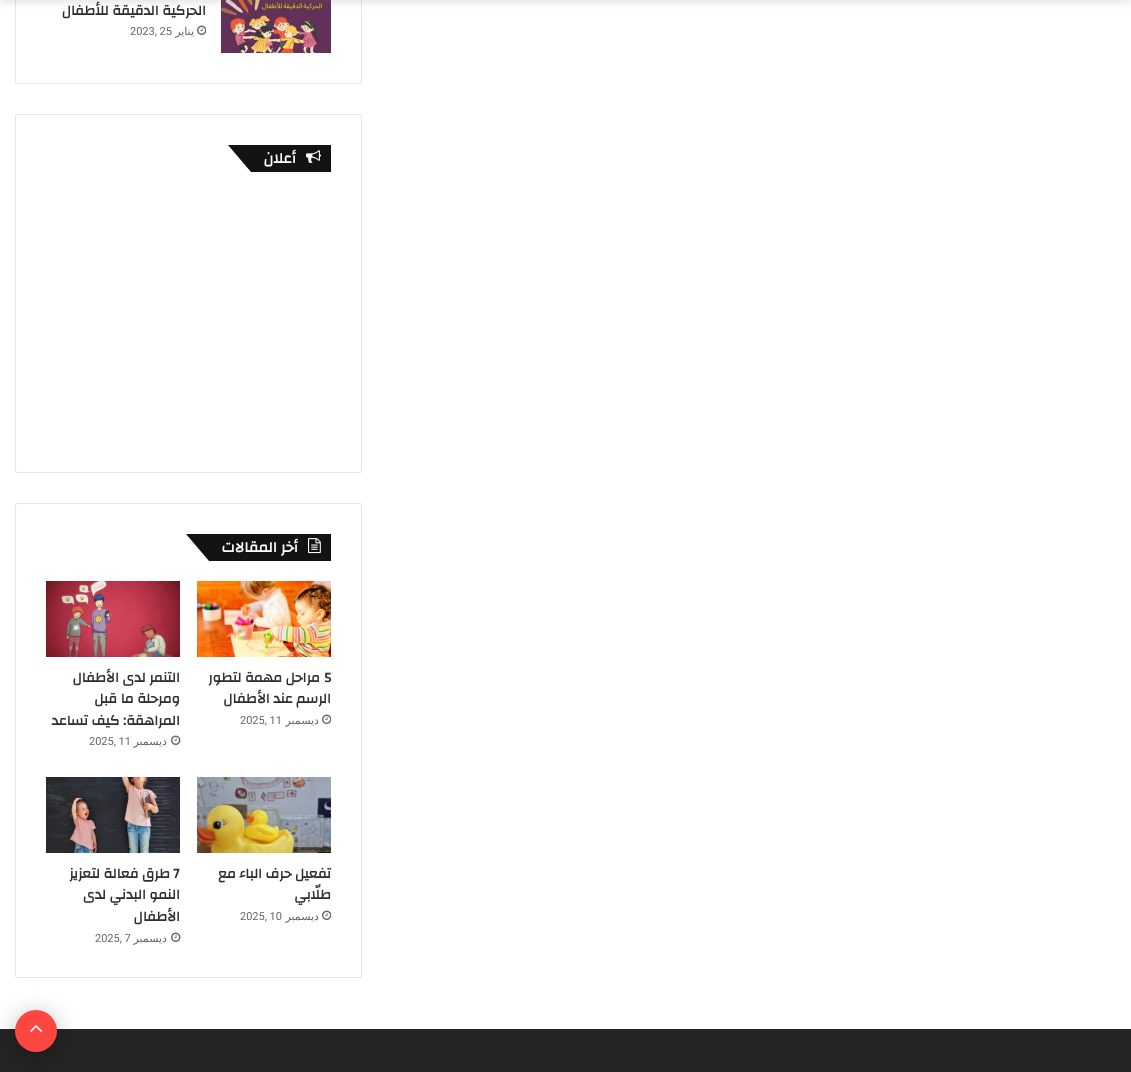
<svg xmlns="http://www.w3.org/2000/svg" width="1131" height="1072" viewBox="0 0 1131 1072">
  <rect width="100%" height="100%" fill="#fff"/>
  <rect x="15.5" y="-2.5" width="346" height="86" rx="1.5" fill="none" stroke="#e6e6e6"/>
  <image x="221" y="0" width="110" height="53" href="img/1.png"/>
  <path d="M0 -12h1131v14H0z" fill="#63636333" filter="blur(4px)"/>
  <image x="197" y="25" width="9" height="10" href="img/2.png"/>
  <rect x="15.5" y="114.5" width="346" height="358" rx="1.5" fill="none" stroke="#e6e6e6"/>
  <path d="M282 145h49v27H282z" fill="#131313"/>
  <path d="M228 145H282L305 172H251Z" fill="#131313"/>
  <image x="306" y="150" width="15" height="13" href="img/3.png"/>
  <rect x="15.5" y="503.5" width="346" height="474" rx="1.5" fill="none" stroke="#e6e6e6"/>
  <path d="M270 534h61v27H270z" fill="#131313"/>
  <path d="M186 534H270L293 561H209Z" fill="#131313"/>
  <image x="308" y="538" width="13" height="16" href="img/4.png"/>
  <image x="197" y="581" width="134" height="76" href="img/5.png"/>
  <image x="322" y="714" width="9" height="10" href="img/2.png"/>
  <image x="46" y="581" width="134" height="76" href="img/6.png"/>
  <image x="171" y="735" width="10" height="10" href="img/7.png"/>
  <image x="197" y="777" width="134" height="76" href="img/8.png"/>
  <image x="322" y="910" width="9" height="10" href="img/2.png"/>
  <image x="46" y="777" width="134" height="76" href="img/9.png"/>
  <image x="171" y="932" width="10" height="10" href="img/7.png"/>
  <path d="M0 1029h1131v43H0z" fill="#252525"/>
  <rect x="15" y="1015" width="42" height="42" rx="21" fill="#0000004d" filter="blur(12.5px)"/>
  <circle cx="36" cy="1031" r="21" fill="#fe4641"/>
  <image x="30" y="1025" width="13" height="8" href="img/10.png"/>
  <text x="206" y="15" font-family="Changa" font-size="14" font-weight="bold" direction="rtl" fill="#2c2f34">الحركية الدقيقة للأطفال</text>
  <text x="194" y="35" font-family="DejaVu Sans" font-size="11" direction="rtl" fill="#666">يناير</text>
  <text x="130" y="35" font-family="Roboto" font-size="11" fill="#666">2023, 25</text>
  <g font-family="Changa" font-size="15" font-weight="bold" direction="rtl" fill="#fff">
    <text x="296" y="163">أعلان</text>
    <text x="298" y="552">أخر المقالات</text>
  </g>
  <text x="324" y="682" font-family="Changa" font-size="14" font-weight="bold" fill="#2c2f34">5</text>
  <g font-family="Changa" font-size="14" font-weight="bold" direction="rtl" fill="#2c2f34">
    <text x="320" y="682">مراحل مهمة لتطور</text>
    <text x="331" y="703">الرسم عند الأطفال</text>
  </g>
  <text x="319" y="724" font-family="DejaVu Sans" font-size="11" direction="rtl" fill="#666">ديسمبر</text>
  <text x="240" y="724" font-family="Roboto" font-size="11" fill="#666">2025, 11</text>
  <g font-family="Changa" font-size="14" font-weight="bold" direction="rtl" fill="#2c2f34">
    <text x="180" y="682">التنمر لدى الأطفال</text>
    <text x="180" y="703">ومرحلة ما قبل</text>
    <text x="180" y="725">المراهقة: كيف تساعد</text>
  </g>
  <text x="167" y="745" font-family="DejaVu Sans" font-size="11" direction="rtl" fill="#666">ديسمبر</text>
  <text x="89" y="745" font-family="Roboto" font-size="11" fill="#666">2025, 11</text>
  <g font-family="Changa" font-size="14" font-weight="bold" direction="rtl" fill="#2c2f34">
    <text x="331" y="878">تفعيل حرف الباء مع</text>
    <text x="331" y="899">طلّابي</text>
  </g>
  <text x="319" y="920" font-family="DejaVu Sans" font-size="11" direction="rtl" fill="#666">ديسمبر</text>
  <text x="240" y="920" font-family="Roboto" font-size="11" fill="#666">2025, 10</text>
  <text x="173" y="878" font-family="Changa" font-size="14" font-weight="bold" fill="#2c2f34">7</text>
  <g font-family="Changa" font-size="14" font-weight="bold" direction="rtl" fill="#2c2f34">
    <text x="170" y="878">طرق فعالة لتعزيز</text>
    <text x="180" y="899">النمو البدني لدى</text>
    <text x="180" y="921">الأطفال</text>
  </g>
  <text x="167" y="942" font-family="DejaVu Sans" font-size="11" direction="rtl" fill="#666">ديسمبر</text>
  <text x="95" y="942" font-family="Roboto" font-size="11" fill="#666">2025, 7</text>
</svg>
